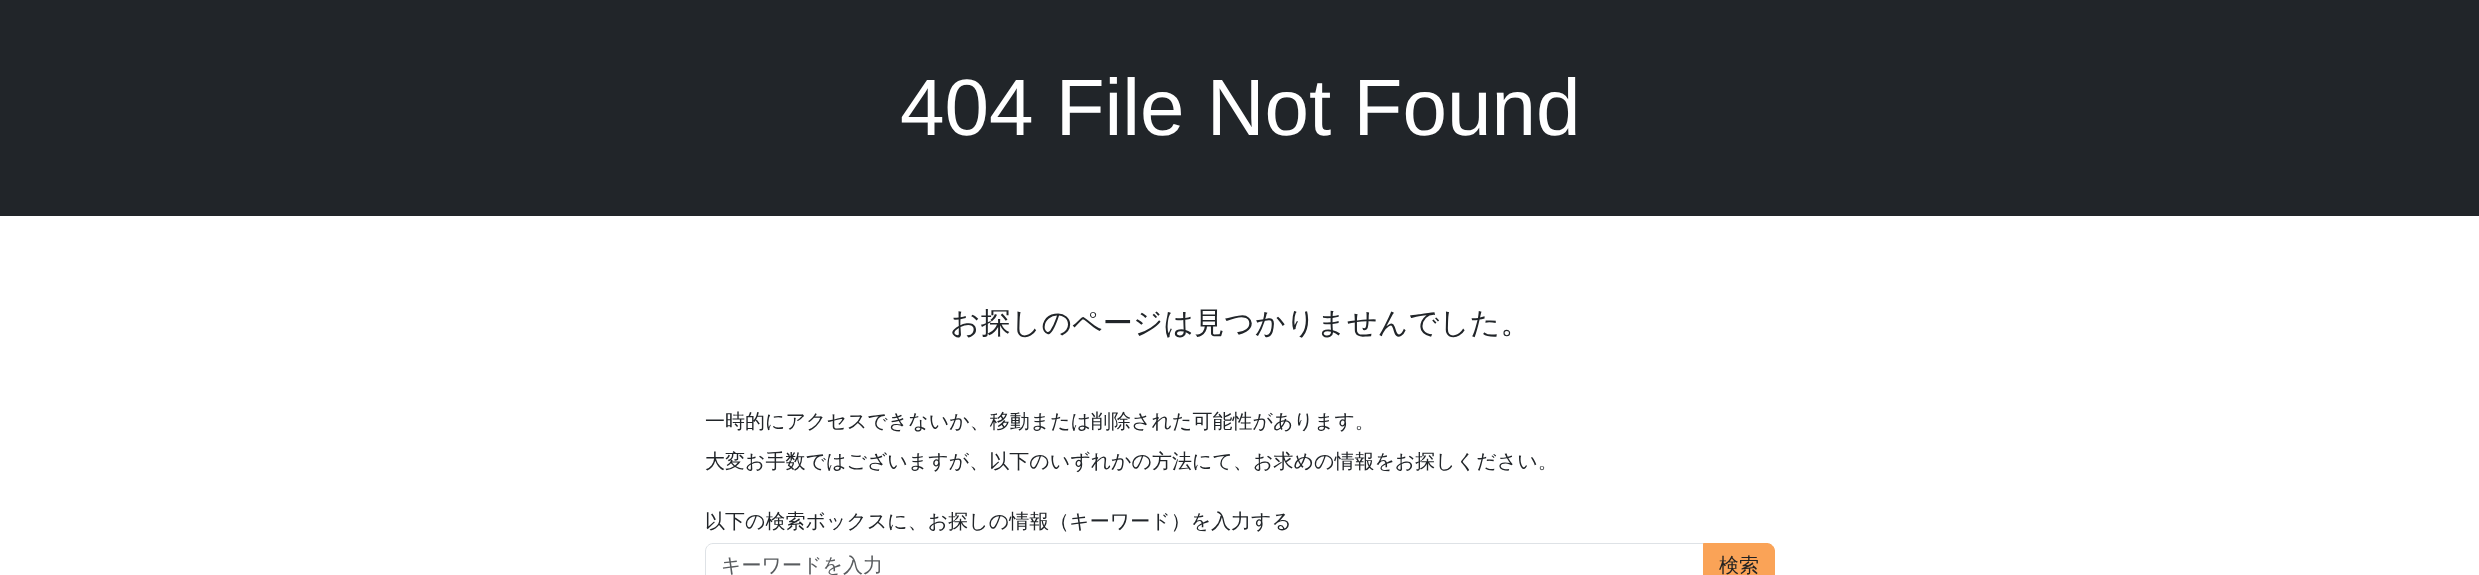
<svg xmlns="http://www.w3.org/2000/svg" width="2479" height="575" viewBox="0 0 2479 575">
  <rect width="100%" height="100%" fill="#fff"/>
  <path d="M0 0h2479v216H0z" fill="#212529"/>
  <path d="M713 543.5H1703.5V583.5H713C709 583.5 705.5 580 705.5 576V551C705.5 547 709 543.5 713 543.5Z" fill="none" stroke="#dee2e6"/>
  <path d="M1703.5 543.5H1767C1771 543.5 1774.5 547 1774.5 551V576C1774.5 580 1771 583.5 1767 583.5H1703.5Z" fill="#faa357" stroke="#faa357"/>
  <text x="900" y="135" font-family="Liberation Sans" font-size="80" fill="#fff">404 File Not Found</text>
  <text x="950" y="333" font-family="WenQuanYi Zen Hei" font-size="30" font-weight="500" fill="#212529">お探しのページは見つかりませんでした。</text>
  <g font-family="WenQuanYi Zen Hei" font-size="20" font-weight="500" fill="#212529">
    <text x="705" y="428">一時的にアクセスできないか、移動または削除された可能性があります。</text>
    <text x="705" y="468">大変お手数ではございますが、以下のいずれかの方法にて、お求めの情報をお探しください。</text>
    <text x="705" y="528">以下の検索ボックスに、お探しの情報（キーワード）を入力する</text>
  </g>
  <text x="721" y="572" font-family="WenQuanYi Zen Hei" font-size="20" font-weight="500" fill="#595c5f">キーワードを入力</text>
  <text x="1719" y="572" font-family="WenQuanYi Zen Hei" font-size="20" font-weight="500" fill="#222">検索</text>
</svg>
